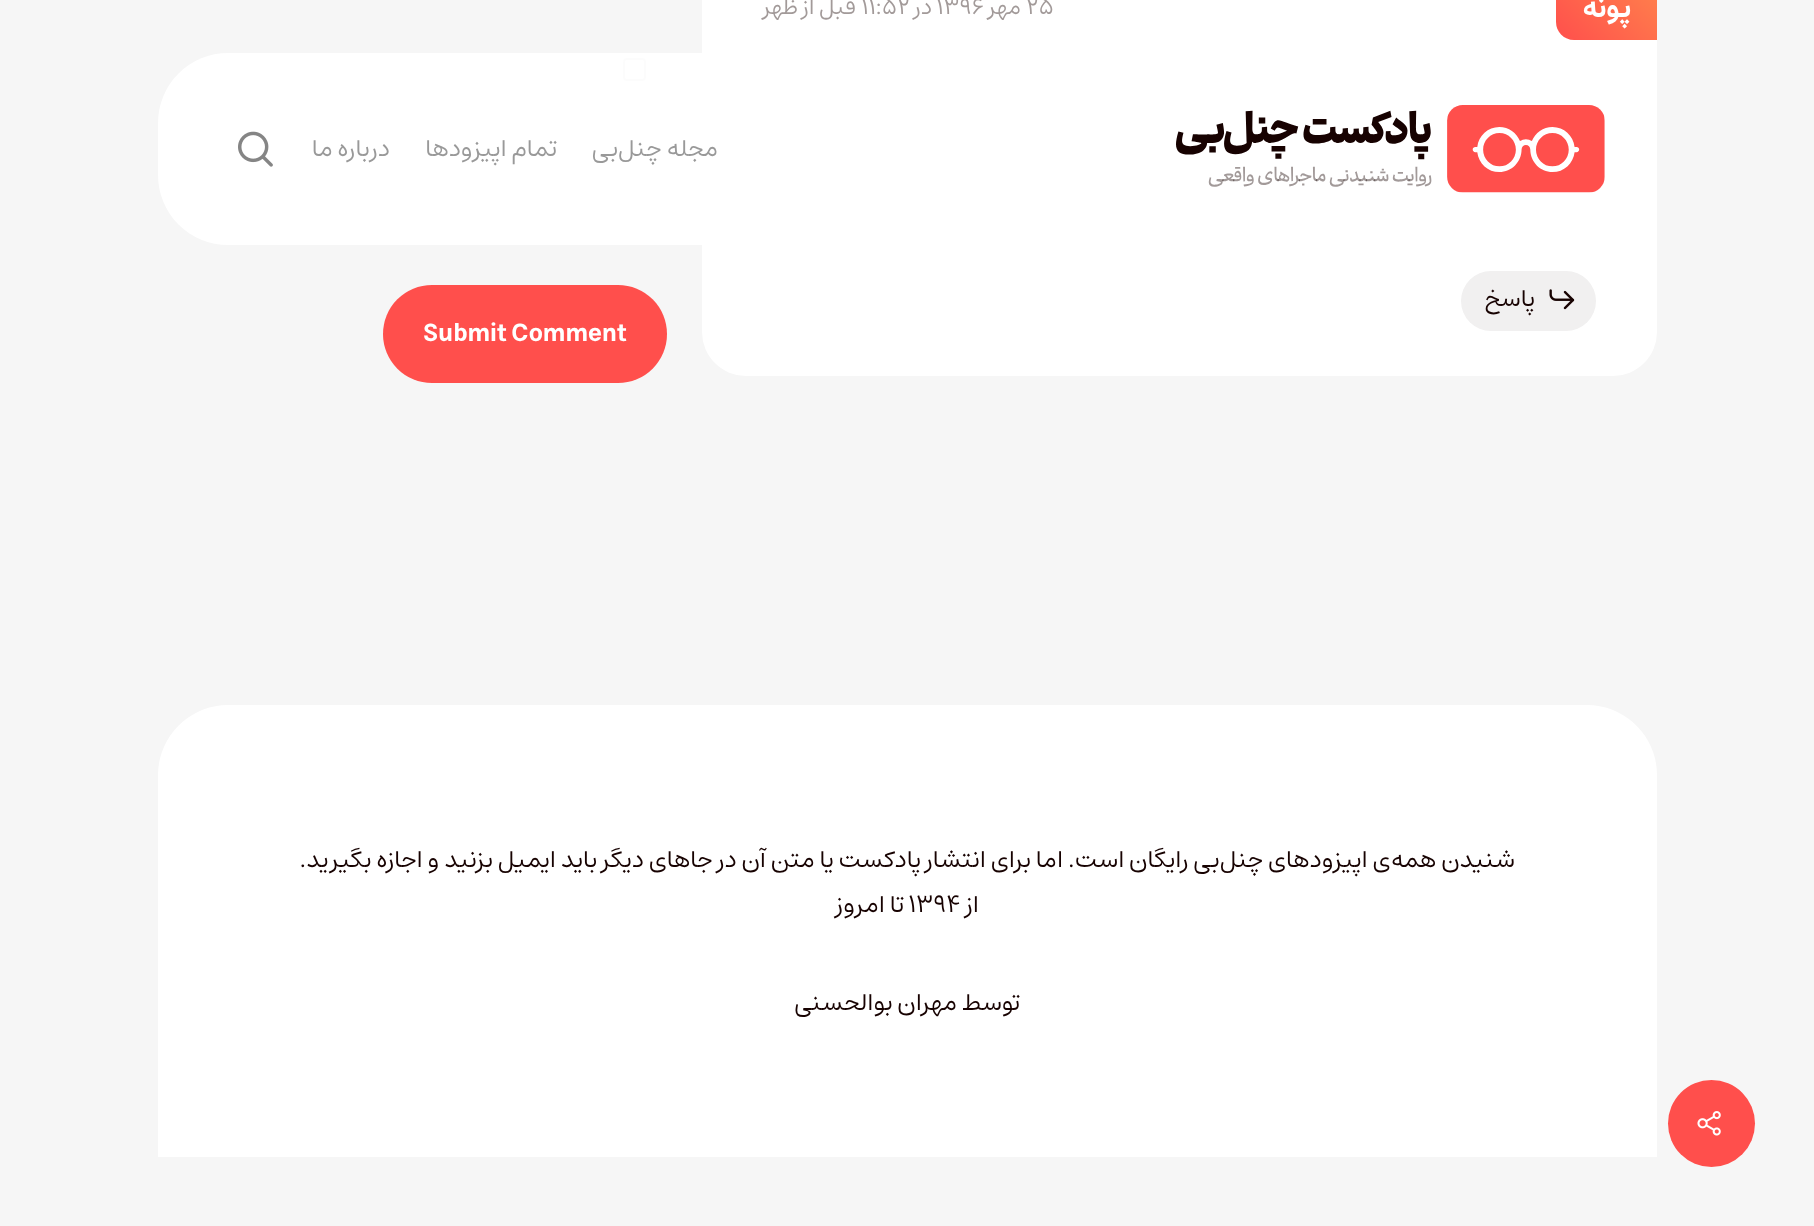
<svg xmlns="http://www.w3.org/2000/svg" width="1814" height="1226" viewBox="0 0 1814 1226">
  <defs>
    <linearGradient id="g1" gradientUnits="userSpaceOnUse" x1="1565" y1="50" x2="1648" y2="-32"><stop offset="0" stop-color="#ff4f4c"/><stop offset="1" stop-color="#ff834c"/></linearGradient>
  </defs>
  <rect width="100%" height="100%" fill="#f6f6f6"/>
  <rect x="702" y="-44" width="955" height="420" rx="44" fill="#fff"/>
  <path d="M1574-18H1657V40H1574C1564 40 1556 32 1556 22V0C1556-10 1564-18 1574-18Z" fill="url(#g1)"/>
  <rect x="1461" y="271" width="135" height="60" rx="30" fill="#f1f0f0"/>
  <image x="1549" y="289" width="26" height="21" href="img/1.png"/>
  <rect x="624" y="59" width="21" height="21" rx="3" fill="#fff" stroke="#767676" stroke-width="2"/>
  <rect x="383" y="285" width="284" height="98" rx="49" fill="#ff4f4c"/>
  <path d="M228 705H1587C1625.5 705 1657 736.5 1657 775V1157H158V775C158 736.5 189.5 705 228 705Z" fill="#fff"/>
  <circle cx="1711.5" cy="1123.5" r="43.5" fill="#ff4f4c"/>
  <image x="1697" y="1111" width="24" height="25" href="img/2.png"/>
  <rect x="158" y="53" width="1499" height="192" rx="70" fill="#fffffffa"/>
  <image x="1176" y="105" width="429" height="88" href="img/3.png"/>
  <image x="238" y="131" width="35" height="36" href="img/4.png"/>
  <text x="1631" y="17" font-family="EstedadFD" font-size="28" font-weight="bold" direction="rtl" fill="#fff">پونه</text>
  <text x="1026" y="14" font-family="EstedadFD" font-size="22.75" fill="#a29a99">۲۵</text>
  <text x="1021" y="14" font-family="EstedadFD" font-size="22.75" direction="rtl" fill="#a29a99">مهر</text>
  <text x="936" y="14" font-family="EstedadFD" font-size="22.75" fill="#a29a99">۱۳۹۶</text>
  <text x="932" y="14" font-family="EstedadFD" font-size="22.75" direction="rtl" fill="#a29a99">در</text>
  <text x="861" y="14" font-family="EstedadFD" font-size="22.75" fill="#a29a99">۱۱:۵۲</text>
  <text x="856" y="14" font-family="EstedadFD" font-size="22.75" direction="rtl" fill="#a29a99">قبل از ظهر</text>
  <text x="1535" y="306" font-family="EstedadFD" font-size="24.5" direction="rtl" fill="#170201">پاسخ</text>
  <text x="423" y="341" font-family="EstedadFD" font-size="24.5" font-weight="bold" fill="#fff">Submit Comment</text>
  <g font-family="EstedadFD" font-size="24.5" direction="rtl" fill="#170201">
    <text x="1515" y="867">شنیدن همه‌ی اپیزودهای چنل‌بی رایگان است. اما برای انتشار پادکست یا متن آن در جاهای دیگر باید</text>
    <text x="556" y="867">ایمیل بزنید</text>
    <text x="439" y="867">و اجازه بگیرید.</text>
    <text x="979" y="912">از</text>
  </g>
  <text x="908" y="912" font-family="EstedadFD" font-size="24.5" fill="#170201">۱۳۹۴</text>
  <g font-family="EstedadFD" font-size="24.5" direction="rtl" fill="#170201">
    <text x="904" y="912">تا امروز</text>
    <text x="1020" y="1010">توسط</text>
    <text x="957" y="1010">مهران بوالحسنی</text>
  </g>
  <g font-family="EstedadFD" font-size="24.5" direction="rtl" fill="#999">
    <text x="718" y="156">مجله چنل‌بی</text>
    <text x="557" y="156">تمام اپیزودها</text>
    <text x="390" y="156">درباره ما</text>
  </g>
</svg>
